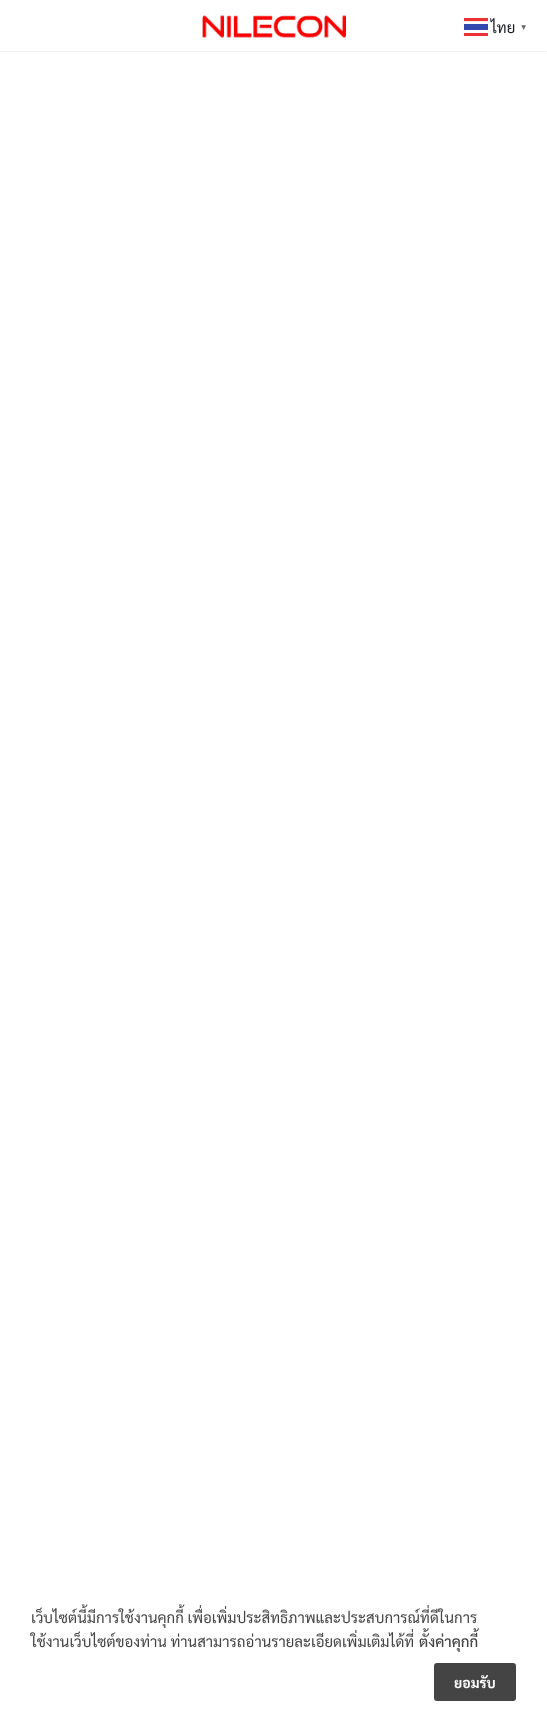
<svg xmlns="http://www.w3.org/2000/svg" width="547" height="1716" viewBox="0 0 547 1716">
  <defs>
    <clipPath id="clip1"><path d="M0 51h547v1H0z"/></clipPath>
  </defs>
  <rect width="100%" height="100%" fill="#fff"/>
  <g clip-path="url(#clip1)">
    <path d="M0 2h547v51H0z" fill="#00000014" filter="blur(2px)"/>
  </g>
  <image x="202" y="15" width="145" height="23" href="img/1.png"/>
  <image x="464" y="18" width="24" height="18" href="img/2.png"/>
  <path d="M0 52h547v3H0z" fill="#fff"/>
  <rect x="434" y="1663" width="82" height="38" rx="3" fill="#444"/>
  <text x="491" y="33" font-family="Sarabun" font-size="15" fill="#171a20">ไทย</text>
  <text x="521" y="30" font-family="Sarabun" font-size="8" fill="#666">▼</text>
  <g font-family="Sarabun" font-size="15" fill="#444">
    <text x="31" y="1623">เว็บไซต์นี้มีการใช้งานคุกกี้ เพื่อเพิ่มประสิทธิภาพและประสบการณ์ที่ดีในการ</text>
    <text x="31" y="1647">ใช้งานเว็บไซต์ของท่าน ท่านสามารถอ่านรายละเอียดเพิ่มเติมได้ที่</text>
  </g>
  <text x="419" y="1647" font-family="Sarabun" font-size="15" font-weight="500" fill="#444">ตั้งค่าคุกกี้</text>
  <text x="454" y="1688" font-family="Sarabun" font-size="14" font-weight="bold" fill="#fff">ยอมรับ</text>
</svg>
